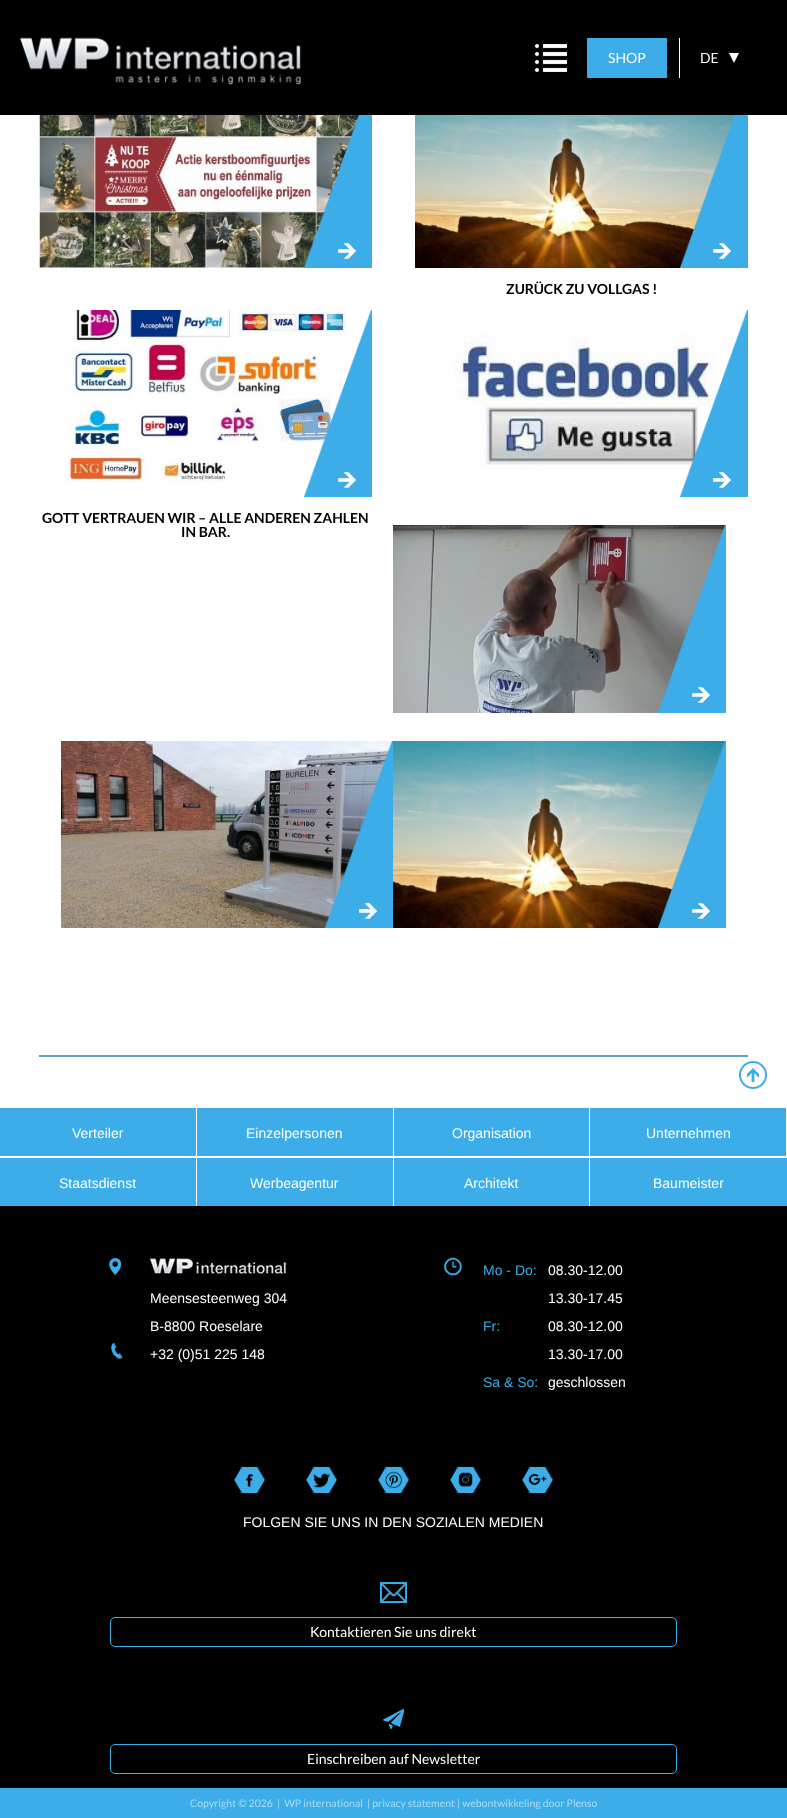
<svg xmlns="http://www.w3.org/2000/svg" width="787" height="1818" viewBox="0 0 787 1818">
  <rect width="100%" height="100%" fill="#fff"/>
  <path d="M0 0h787v115H0z" fill="#000"/>
  <image x="20" y="37" width="282" height="48" href="img/1.png"/>
  <image x="535" y="44" width="32" height="28" href="img/2.png"/>
  <path d="M587 38h80v40H587z" fill="#3cade9"/>
  <path d="M679 38h1v40H679z" fill="#fff"/>
  <path d="M729 53H739L734 63Z" fill="#fff"/>
  <image x="39" y="115" width="321" height="153" href="img/3.png"/>
  <image x="304" y="115" width="68" height="153" href="img/4.png"/>
  <image x="338" y="243" width="18" height="16" href="img/5.png"/>
  <image x="415" y="115" width="321" height="153" href="img/6.png"/>
  <image x="680" y="115" width="68" height="153" href="img/7.png"/>
  <image x="713" y="243" width="18" height="16" href="img/5.png"/>
  <image x="454" y="330" width="262" height="140" href="img/9.png"/>
  <image x="680" y="310" width="68" height="187" href="img/8.png"/>
  <image x="713" y="472" width="18" height="16" href="img/5.png"/>
  <image x="65" y="310" width="281" height="174" href="img/10.png"/>
  <image x="304" y="310" width="68" height="187" href="img/11.png"/>
  <image x="338" y="472" width="18" height="16" href="img/5.png"/>
  <image x="393" y="525" width="333" height="188" href="img/12.png"/>
  <image x="658" y="525" width="68" height="188" href="img/13.png"/>
  <image x="692" y="687" width="18" height="16" href="img/5.png"/>
  <image x="61" y="741" width="332" height="187" href="img/14.png"/>
  <image x="325" y="741" width="68" height="187" href="img/15.png"/>
  <image x="359" y="903" width="18" height="16" href="img/5.png"/>
  <image x="393" y="741" width="333" height="187" href="img/16.png"/>
  <image x="658" y="741" width="68" height="187" href="img/17.png"/>
  <image x="692" y="903" width="18" height="16" href="img/5.png"/>
  <path d="M39 1055h709v2H39z" fill="#5ea1c4"/>
  <image x="739" y="1061" width="28" height="28" href="img/18.png"/>
  <path d="M0 1108h786v48H0z" fill="#3cade9"/>
  <path d="M196 1106h1v50H196z" fill="#fff"/>
  <path d="M393 1106h1v50H393z" fill="#fff"/>
  <path d="M589 1106h1v50H589z" fill="#fff"/>
  <path d="M0 1158h196v48H0z" fill="#3cade9"/>
  <path d="M197 1158h196v48H197z" fill="#3cade9"/>
  <path d="M394 1158h195v48H394z" fill="#3cade9"/>
  <path d="M590 1158h197v48H590z" fill="#3cade9"/>
  <path d="M0 1206h787v582H0z" fill="#000"/>
  <image x="109" y="1258" width="12" height="17" href="img/19.png"/>
  <image x="150" y="1258" width="137" height="16" href="img/20.png"/>
  <image x="111" y="1343" width="12" height="16" href="img/21.png"/>
  <image x="444" y="1257" width="18" height="19" href="img/22.png"/>
  <image x="234" y="1466" width="31" height="27" href="img/23.png"/>
  <image x="306" y="1466" width="31" height="27" href="img/24.png"/>
  <image x="378" y="1466" width="31" height="27" href="img/25.png"/>
  <image x="450" y="1466" width="31" height="27" href="img/26.png"/>
  <image x="522" y="1466" width="31" height="27" href="img/27.png"/>
  <image x="380" y="1582" width="27" height="21" href="img/28.png"/>
  <rect x="110.5" y="1617.5" width="566" height="29" rx="4.5" fill="none" stroke="#3cade9"/>
  <image x="383" y="1709" width="21" height="21" href="img/29.png"/>
  <rect x="110.5" y="1744.5" width="566" height="29" rx="4.5" fill="none" stroke="#3cade9"/>
  <path d="M0 1788h787v30H0z" fill="#3cade9"/>
  <g font-family="Lato" font-size="14" fill="#fff">
    <text x="608" y="63">SHOP</text>
    <text x="700" y="63">DE</text>
  </g>
  <g font-family="Lato" font-size="14" font-weight="bold" fill="#000">
    <text x="506" y="294">ZURÜCK ZU VOLLGAS !</text>
    <text x="42" y="523">GOTT VERTRAUEN WIR – ALLE ANDEREN ZAHLEN</text>
    <text x="181" y="537">IN BAR.</text>
  </g>
  <g font-family="Liberation Sans" font-size="14" fill="#fff">
    <text x="72" y="1138">Verteiler</text>
    <text x="246" y="1138">Einzelpersonen</text>
    <text x="452" y="1138">Organisation</text>
    <text x="646" y="1138">Unternehmen</text>
    <text x="59" y="1188">Staatsdienst</text>
    <text x="250" y="1188">Werbeagentur</text>
    <text x="464" y="1188">Architekt</text>
    <text x="653" y="1188">Baumeister</text>
    <text x="150" y="1303">Meensesteenweg 304</text>
    <text x="150" y="1331">B-8800 Roeselare</text>
    <text x="150" y="1359">+32 (0)51 225 148</text>
  </g>
  <text x="483" y="1275" font-family="Liberation Sans" font-size="14" fill="#3cade9">Mo - Do:</text>
  <g font-family="Liberation Sans" font-size="14" fill="#fff">
    <text x="548" y="1275">08.30-12.00</text>
    <text x="548" y="1303">13.30-17.45</text>
  </g>
  <text x="483" y="1331" font-family="Liberation Sans" font-size="14" fill="#3cade9">Fr:</text>
  <g font-family="Liberation Sans" font-size="14" fill="#fff">
    <text x="548" y="1331">08.30-12.00</text>
    <text x="548" y="1359">13.30-17.00</text>
  </g>
  <text x="483" y="1387" font-family="Liberation Sans" font-size="14" fill="#3cade9">Sa &amp; So:</text>
  <g font-family="Liberation Sans" font-size="14" fill="#fff">
    <text x="548" y="1387">geschlossen</text>
    <text x="243" y="1527">FOLGEN SIE UNS IN DEN SOZIALEN MEDIEN</text>
  </g>
  <g font-family="Lato" font-size="14" fill="#fff">
    <text x="310" y="1637">Kontaktieren Sie uns direkt</text>
    <text x="307" y="1764">Einschreiben auf Newsletter</text>
  </g>
  <text x="190" y="1807" font-family="Lato" font-size="10.5" fill="#addbf3" xml:space="preserve">Copyright © 2026  |  WP international  | privacy statement | webontwikkeling door Plenso</text>
</svg>
